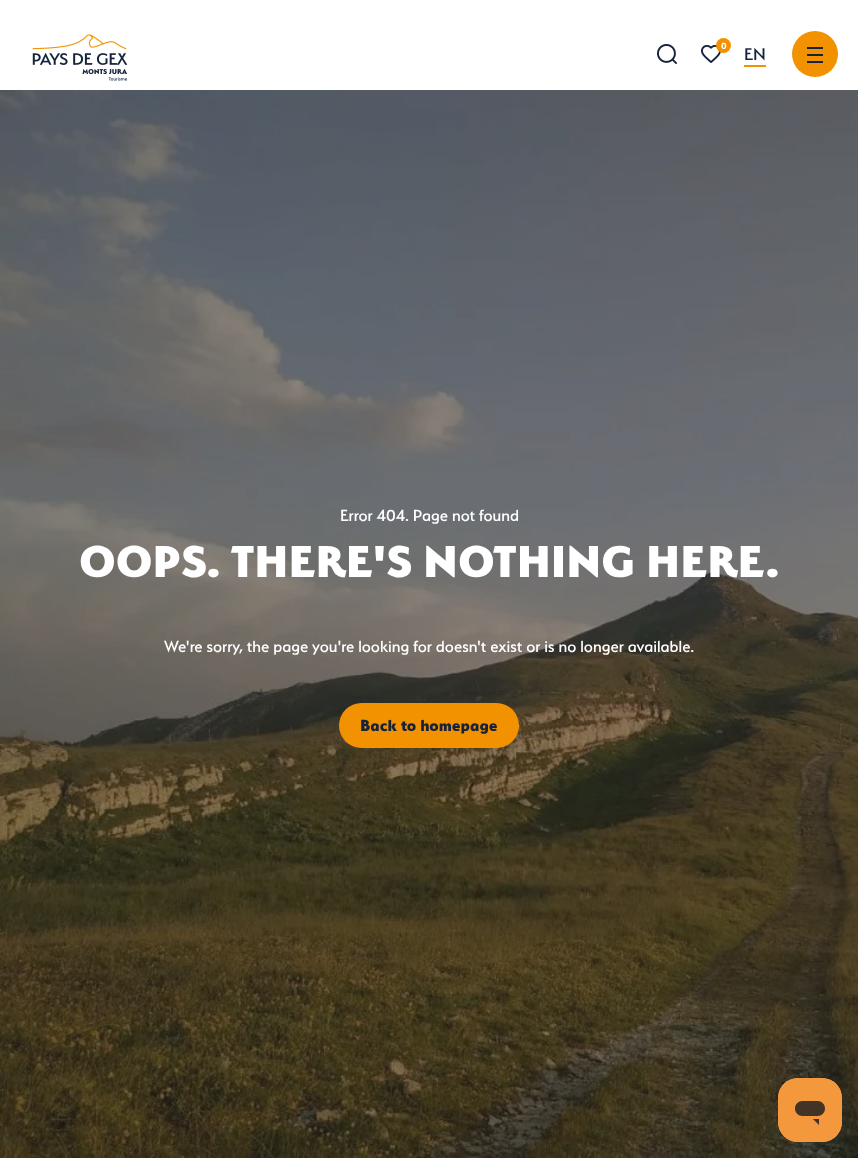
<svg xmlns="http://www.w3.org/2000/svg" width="858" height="1158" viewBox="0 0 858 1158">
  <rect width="100%" height="100%" fill="#fff"/>
  <image x="32" y="34" width="96" height="47" href="img/1.png"/>
  <image x="657" y="44" width="20" height="20" href="img/2.png"/>
  <image x="701" y="45" width="20" height="18" href="img/3.png"/>
  <circle cx="723.5" cy="45.5" r="7.5" fill="#f39200"/>
  <path d="M744 65h22v2H744z" fill="#f39200"/>
  <circle cx="815" cy="54" r="23" fill="#f39200"/>
  <path d="M807 47h16v2H807z" fill="#16233b"/>
  <path d="M807 54h16v2H807z" fill="#16233b"/>
  <path d="M807 61h16v2H807z" fill="#16233b"/>
  <image x="0" y="90" width="858" height="1068" href="img/4.png"/>
  <rect x="339" y="703" width="180" height="45" rx="22.5" fill="#f39200"/>
  <rect x="778" y="1098" width="64" height="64" rx="20" fill="#17494d26" filter="blur(15px)"/>
  <image x="778" y="1078" width="64" height="64" href="img/5.png"/>
  <text x="721" y="49" font-family="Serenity" font-size="10" font-weight="bold" fill="#fff">0</text>
  <text x="744" y="60" font-family="Serenity" font-size="19" font-weight="500" fill="#16233b">EN</text>
  <text x="340" y="521" font-family="Serenity" font-size="18" font-weight="500" fill="#fff">Error 404. Page not found</text>
  <text x="79" y="577" font-family="Serenity" font-size="50" font-weight="900" fill="#fff">OOPS. THERE'S NOTHING HERE.</text>
  <text x="164" y="652" font-family="Serenity" font-size="18" font-weight="500" fill="#fff">We're sorry, the page you're looking for doesn't exist or is no longer available.</text>
  <text x="360" y="731" font-family="Serenity" font-size="18" font-weight="900" fill="#16233b">Back to homepage</text>
</svg>
